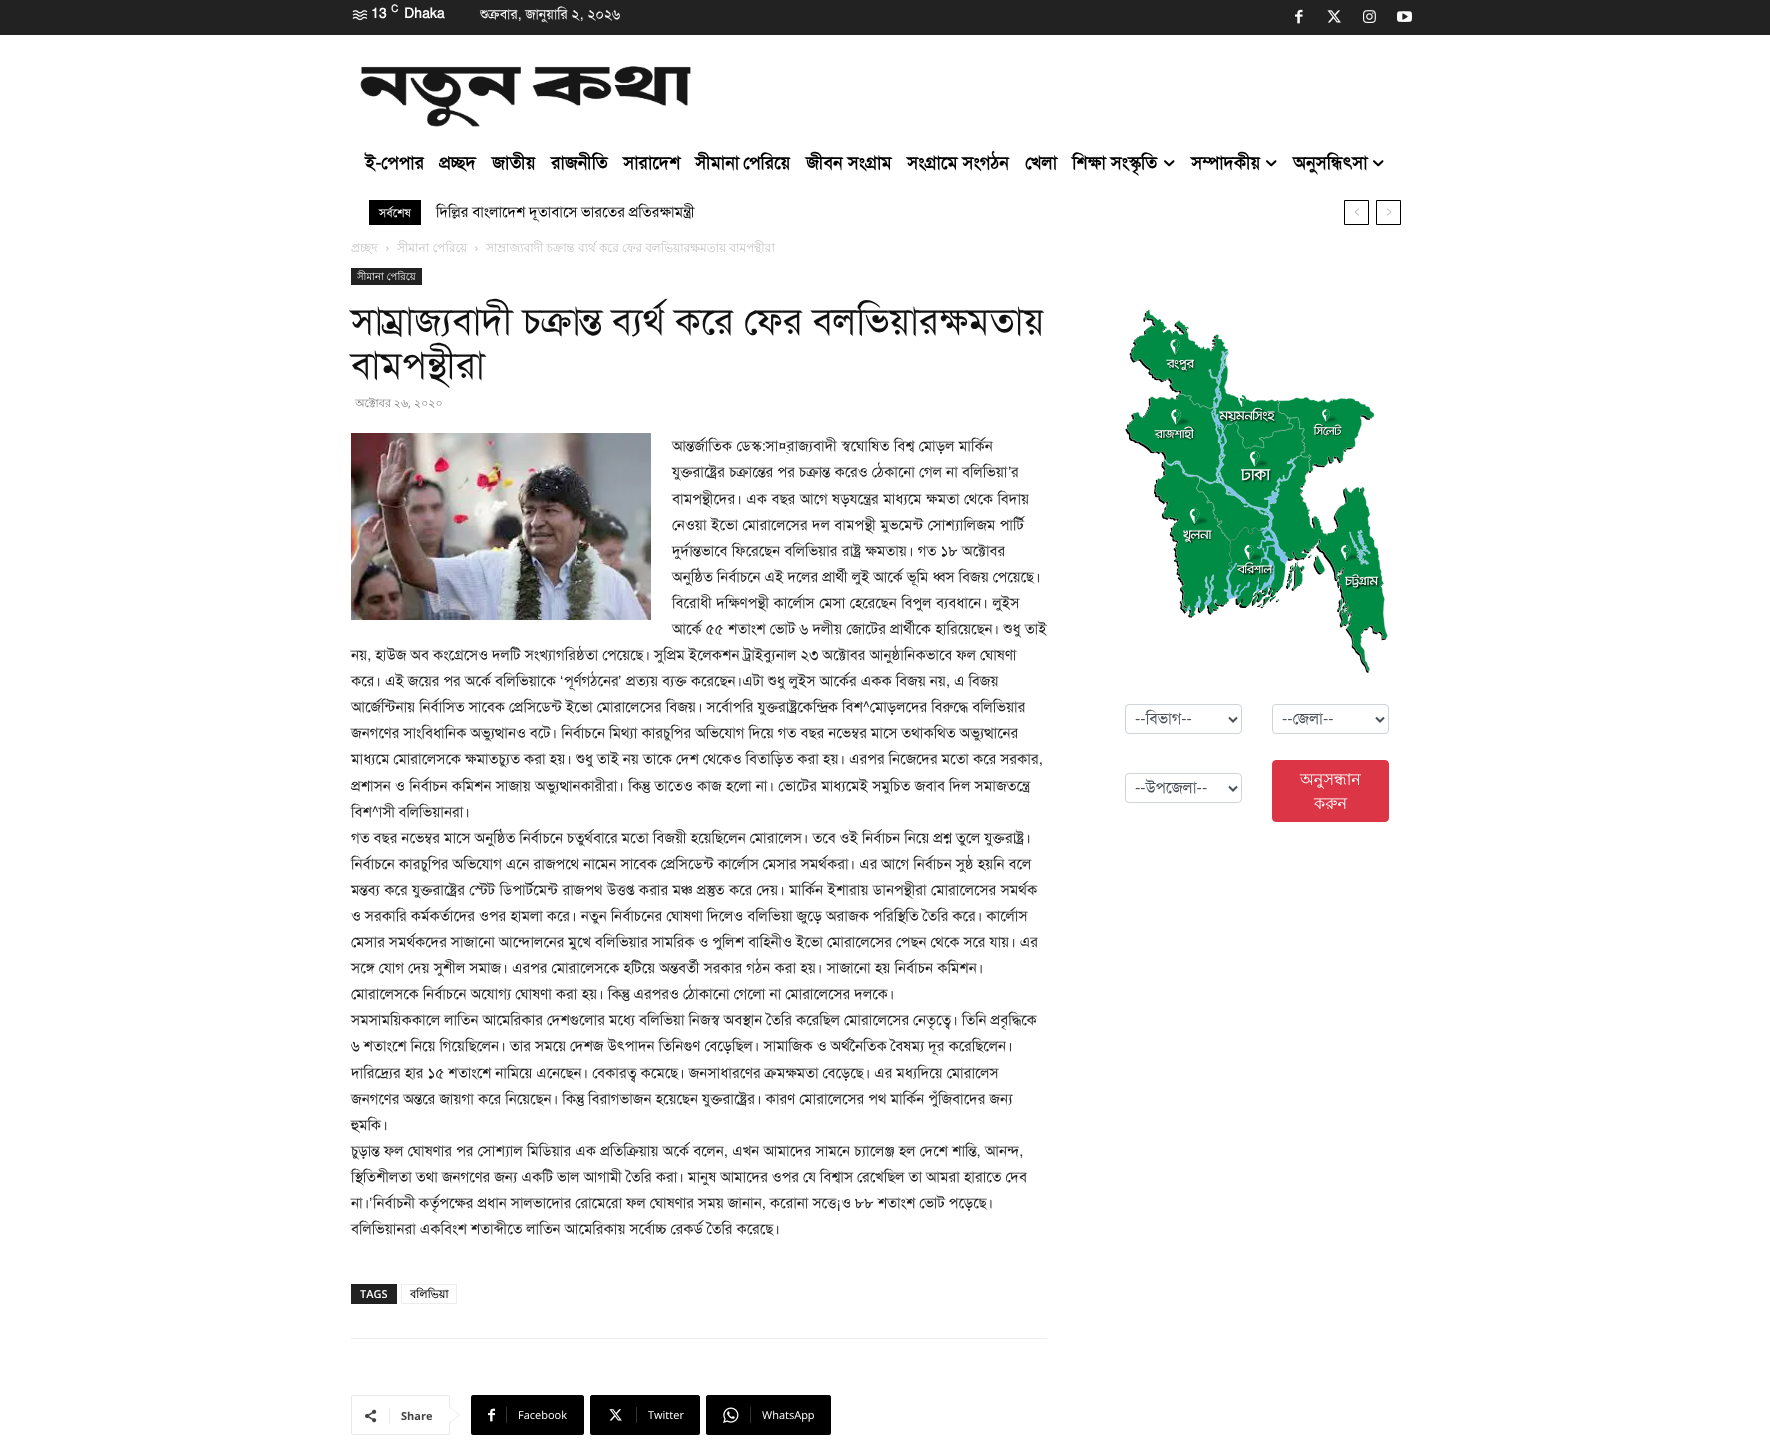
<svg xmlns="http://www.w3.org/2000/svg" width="1770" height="1446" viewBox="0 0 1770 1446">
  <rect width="100%" height="100%" fill="#fff"/>
  <path d="M0 0h1770v35H0z" fill="#222"/>
  <image x="352" y="10" width="16" height="11" href="img/1.png"/>
  <image x="1295" y="9" width="8" height="15" href="img/2.png"/>
  <image x="1327" y="10" width="14" height="13" href="img/3.png"/>
  <image x="1363" y="10" width="13" height="13" href="img/4.png"/>
  <image x="1397" y="11" width="15" height="11" href="img/5.png"/>
  <image x="360" y="66" width="331" height="61" href="img/6.png"/>
  <image x="1164" y="160" width="11" height="7" href="img/7.png"/>
  <image x="1266" y="160" width="11" height="7" href="img/7.png"/>
  <image x="1373" y="160" width="11" height="7" href="img/7.png"/>
  <path d="M369 200h52v25H369z" fill="#000"/>
  <path d="M1344.5 200.5h24v24H1344.5z" fill="none" stroke="#000"/>
  <image x="1354" y="208" width="5" height="8" href="img/8.png"/>
  <path d="M1376.5 200.5h24v24H1376.5z" fill="none" stroke="#000"/>
  <image x="1387" y="208" width="5" height="8" href="img/9.png"/>
  <image x="386" y="246" width="3" height="5" href="img/10.png"/>
  <image x="475" y="246" width="3" height="5" href="img/10.png"/>
  <path d="M351 268h71v17H351z" fill="#222"/>
  <image x="351" y="433" width="300" height="187" href="img/11.png"/>
  <path d="M351 1284h46v20H351z" fill="#222"/>
  <path d="M401.5 1284.5h55v19H401.5z" fill="none" stroke="#ededed"/>
  <path d="M351 1338h696v1H351z" fill="#ededed"/>
  <rect x="351.5" y="1395.5" width="98" height="39" rx="1.5" fill="none" stroke="#e9e9e9"/>
  <path d="M449 1424V1406L460 1415Z" fill="#e9e9e9"/>
  <image x="365" y="1409" width="12" height="14" href="img/12.png"/>
  <path d="M389 1408h1v16H389z" fill="#ebebeb"/>
  <path d="M449 1423V1407L459 1415Z" fill="#fff"/>
  <path d="M506 1395H582C583 1395 584 1396 584 1397V1433C584 1434 583 1435 582 1435H506Z" fill="#000"/>
  <path d="M473 1395H512V1435H473C472 1435 471 1434 471 1433V1397C471 1396 472 1395 473 1395Z" fill="#000"/>
  <image x="488" y="1408" width="7" height="14" href="img/13.png"/>
  <path d="M506 1407h1v16H506z" fill="#333"/>
  <path d="M636 1395H698C699 1395 700 1396 700 1397V1433C700 1434 699 1435 698 1435H636Z" fill="#000"/>
  <path d="M592 1395H642V1435H592C591 1435 590 1434 590 1433V1397C590 1396 591 1395 592 1395Z" fill="#000"/>
  <image x="609" y="1409" width="13" height="12" href="img/14.png"/>
  <path d="M636 1407h1v16H636z" fill="#333"/>
  <path d="M750 1395H829C830 1395 831 1396 831 1397V1433C831 1434 830 1435 829 1435H750Z" fill="#000"/>
  <path d="M708 1395H756V1435H708C707 1435 706 1434 706 1433V1397C706 1396 707 1395 708 1395Z" fill="#000"/>
  <image x="723" y="1407" width="16" height="16" href="img/15.png"/>
  <path d="M750 1407h1v16H750z" fill="#333"/>
  <image x="1125" y="309" width="263" height="364" href="img/16.png"/>
  <rect x="1125.5" y="704.5" width="116" height="29" rx="3.5" fill="none" stroke="#ced4da"/>
  <path d="M1229 717.5L1233 721.5L1237 717.5" fill="none" stroke="#495057" stroke-width="2"/>
  <rect x="1272.5" y="704.5" width="116" height="29" rx="3.5" fill="none" stroke="#ced4da"/>
  <path d="M1376 717.5L1380 721.5L1384 717.5" fill="none" stroke="#495057" stroke-width="2"/>
  <rect x="1125.5" y="773.5" width="116" height="29" rx="3.5" fill="none" stroke="#ced4da"/>
  <path d="M1229 786.5L1233 790.5L1237 786.5" fill="none" stroke="#495057" stroke-width="2"/>
  <rect x="1272.5" y="760.5" width="116" height="61" rx="3.5" fill="#dc3545" stroke="#dc3545"/>
  <text x="371" y="18" font-family="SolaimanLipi" font-size="14" font-weight="bold" fill="#fff">13</text>
  <text x="391" y="12" font-family="SolaimanLipi" font-size="10" font-weight="bold" fill="#fff">C</text>
  <text x="404" y="18" font-family="SolaimanLipi" font-size="14" font-weight="bold" fill="#fff">Dhaka</text>
  <text x="480" y="19" font-family="SolaimanLipi" font-size="14" fill="#fff">শুক্রবার, জানুয়ারি ২, ২০২৬</text>
  <g font-family="SolaimanLipi" font-size="18" font-weight="bold" fill="#000">
    <text x="365" y="169">ই-পেপার</text>
    <text x="439" y="169">প্রচ্ছদ</text>
    <text x="492" y="169">জাতীয়</text>
    <text x="551" y="169">রাজনীতি</text>
    <text x="623" y="169">সারাদেশ</text>
    <text x="695" y="169" word-spacing="-1">সীমানা পেরিয়ে</text>
    <text x="806" y="169">জীবন সংগ্রাম</text>
    <text x="907" y="169">সংগ্রামে সংগঠন</text>
    <text x="1025" y="169">খেলা</text>
    <text x="1072" y="169">শিক্ষা সংস্কৃতি</text>
    <text x="1191" y="169">সম্পাদকীয়</text>
    <text x="1293" y="169">অনুসন্ধিৎসা</text>
  </g>
  <text x="379" y="217" font-family="SolaimanLipi" font-size="12" fill="#fff">সর্বশেষ</text>
  <text x="436" y="217" word-spacing="-0.5" font-family="SolaimanLipi" font-size="15" fill="#000">দিল্লির বাংলাদেশ দূতাবাসে ভারতের প্রতিরক্ষামন্ত্রী</text>
  <g font-family="Lohit Bengali" font-size="12" fill="#c3c3c3">
    <text x="351" y="252">প্রচ্ছদ</text>
    <text x="397" y="252">সীমানা পেরিয়ে</text>
    <text x="486" y="252" word-spacing="-0.25">সাম্রাজ্যবাদী চক্রান্ত ব্যর্থ করে ফের বলভিয়ারক্ষমতায় বামপন্থীরা</text>
  </g>
  <text x="357" y="280" font-family="Lohit Bengali" font-size="10" fill="#fff">সীমানা পেরিয়ে</text>
  <g font-family="SolaimanLipi" font-size="38" fill="#111">
    <text x="351" y="334" word-spacing="-0.5">সাম্রাজ্যবাদী চক্রান্ত ব্যর্থ করে ফের বলভিয়ারক্ষমতায়</text>
    <text x="351" y="378">বামপন্থীরা</text>
  </g>
  <text x="355" y="407" word-spacing="-0.25" font-family="Lohit Bengali" font-size="11" fill="#767676">অক্টোবর ২৬</text>
  <text x="408" y="407" font-family="Open Sans" font-size="11" fill="#767676">,</text>
  <text x="414" y="407" font-family="Lohit Bengali" font-size="11" fill="#767676">২০২০</text>
  <g font-family="SolaimanLipi" font-size="15" fill="#222">
    <text x="672" y="451" word-spacing="0.25">আন্তর্জাতিক ডেস্ক:সা¤্রাজ্যবাদী স্বঘোষিত বিশ্ব মোড়ল মার্কিন</text>
    <text x="672" y="477">যুক্তরাষ্ট্রের চক্রান্তের পর চক্রান্ত করেও ঠেকানো গেল না বলিভিয়া</text>
  </g>
  <text x="1008" y="477" font-family="Liberation Sans" font-size="15" fill="#222">’</text>
  <g font-family="SolaimanLipi" font-size="15" fill="#222">
    <text x="1011" y="477">র</text>
    <text x="672" y="504" word-spacing="0.25">বামপন্থীদের। এক বছর আগে ষড়যন্ত্রের মাধ্যমে ক্ষমতা থেকে বিদায়</text>
    <text x="672" y="530" word-spacing="0.25">নেওয়া ইভো মোরালেসের দল বামপন্থী মুভমেন্ট সোশ্যালিজম পার্টি</text>
    <text x="672" y="556">দুর্দান্তভাবে ফিরেছেন বলিভিয়ার রাষ্ট্র ক্ষমতায়। গত ১৮ অক্টোবর</text>
    <text x="672" y="582" word-spacing="-0.25">অনুষ্ঠিত নির্বাচনে এই দলের প্রার্থী লুই আর্কে ভূমি ধ্বস বিজয় পেয়েছে।</text>
    <text x="672" y="608" word-spacing="0.25">বিরোধী দক্ষিণপন্থী কার্লোস মেসা হেরেছেন বিপুল ব্যবধানে। লুইস</text>
    <text x="672" y="634">আর্কে ৫৫ শতাংশ ভোট ৬ দলীয় জোটের প্রার্থীকে হারিয়েছেন। শুধু তাই</text>
    <text x="351" y="660" word-spacing="-0.25">নয়, হাউজ অব কংগ্রেসেও দলটি সংখ্যাগরিষ্ঠতা পেয়েছে। সুপ্রিম ইলেকশন ট্রাইব্যুনাল ২৩ অক্টোবর আনুষ্ঠানিকভাবে ফল ঘোষণা</text>
    <text x="351" y="686" word-spacing="-0.25">করে। এই জয়ের পর অর্কে বলিভিয়াকে</text>
    <text x="626" y="686" word-spacing="-0.25">প্রত্যয় ব্যক্ত করেছেন।এটা শুধু লুইস আর্কের একক বিজয় নয়, এ বিজয়</text>
  </g>
  <text x="560" y="686" font-family="Liberation Sans" font-size="15" fill="#222">‘</text>
  <text x="564" y="686" font-family="SolaimanLipi" font-size="15" fill="#222">পূর্ণগঠনের</text>
  <text x="618" y="686" font-family="Liberation Sans" font-size="15" fill="#222">’</text>
  <g font-family="SolaimanLipi" font-size="15" fill="#222">
    <text x="351" y="712" word-spacing="-0.25">আর্জেন্টিনায় নির্বাসিত সাবেক প্রেসিডেন্ট ইভো মোরালেসের বিজয়। সর্বোপরি যুক্তরাষ্ট্রকেন্দ্রিক বিশ^মোড়লদের বিরুদ্ধে বলিভিয়ার</text>
    <text x="351" y="738" word-spacing="-0.25">জনগণের সাংবিধানিক অভ্যুত্থানও বটে। নির্বাচনে মিথ্যা কারচুপির অভিযোগ দিয়ে গত বছর নভেম্বর মাসে তথাকথিত অভ্যুত্থানের</text>
    <text x="351" y="764" word-spacing="-0.25">মাধ্যমে মোরালেসকে ক্ষমাতচ্যুত করা হয়। শুধু তাই নয় তাকে দেশ থেকেও বিতাড়িত করা হয়। এরপর নিজেদের মতো করে সরকার,</text>
    <text x="351" y="791">প্রশাসন ও নির্বাচন কমিশন সাজায় অভ্যুত্থানকারীরা। কিন্তু তাতেও কাজ হলো না। ভোটের মাধ্যমেই সমুচিত জবাব দিল সমাজতন্ত্রে</text>
    <text x="351" y="817" word-spacing="-1">বিশ^াসী বলিভিয়ানরা।</text>
    <text x="351" y="843" word-spacing="-0.25">গত বছর নভেম্বর মাসে অনুষ্ঠিত নির্বাচনে চতুর্থবারে মতো বিজয়ী হয়েছিলেন মোরালেস। তবে ওই নির্বাচন নিয়ে প্রশ্ন তুলে যুক্তরাষ্ট্র।</text>
    <text x="351" y="869" word-spacing="-0.25">নির্বাচনে কারচুপির অভিযোগ এনে রাজপথে নামেন সাবেক প্রেসিডেন্ট কার্লোস মেসার সমর্থকরা। এর আগে নির্বাচন সুষ্ঠ হয়নি বলে</text>
    <text x="351" y="895" word-spacing="0.2">মন্তব্য করে যুক্তরাষ্ট্রের স্টেট ডিপার্টমেন্ট রাজপথ উত্তপ্ত করার মঞ্চ প্রস্তুত করে দেয়। মার্কিন ইশারায় ডানপন্থীরা মোরালেসের সমর্থক</text>
    <text x="351" y="921" word-spacing="-0.25">ও সরকারি কর্মকর্তাদের ওপর হামলা করে। নতুন নির্বাচনের ঘোষণা দিলেও বলিভিয়া জুড়ে অরাজক পরিস্থিতি তৈরি করে। কার্লোস</text>
    <text x="351" y="947" word-spacing="-0.3">মেসার সমর্থকদের সাজানো আন্দোলনের মুখে বলিভিয়ার সামরিক ও পুলিশ বাহিনীও ইভো মোরালেসের পেছন থেকে সরে যায়। এর</text>
    <text x="351" y="973" word-spacing="-0.1">সঙ্গে যোগ দেয় সুশীল সমাজ। এরপর মোরালেসকে হটিয়ে অন্তবর্তী সরকার গঠন করা হয়। সাজানো হয় নির্বাচন কমিশন।</text>
    <text x="351" y="999" word-spacing="-0.2">মোরালেসকে নির্বাচনে অযোগ্য ঘোষণা করা হয়। কিন্তু এরপরও ঠোকানো গেলো না মোরালেসের দলকে।</text>
    <text x="351" y="1025" word-spacing="-0.25">সমসাময়িককালে লাতিন আমেরিকার দেশগুলোর মধ্যে বলিভিয়া নিজস্ব অবস্থান তৈরি করেছিল মোরালেসের নেতৃত্বে। তিনি প্রবৃদ্ধিকে</text>
    <text x="351" y="1051" word-spacing="-0.25">৬ শতাংশে নিয়ে গিয়েছিলেন। তার সময়ে দেশজ উৎপাদন তিনিগুণ বেড়েছিল। সামাজিক ও অর্থনৈতিক বৈষম্য দূর করেছিলেন।</text>
    <text x="351" y="1078" word-spacing="-0.25">দারিদ্র্যের হার ১৫ শতাংশে নামিয়ে এনেছেন। বেকারত্ব কমেছে। জনসাধারণের ক্রমক্ষমতা বেড়েছে। এর মধ্যদিয়ে মোরালেস</text>
    <text x="351" y="1104" word-spacing="-0.2">জনগণের অন্তরে জায়গা করে নিয়েছেন। কিন্তু বিরাগভাজন হয়েছেন যুক্তরাষ্ট্রের। কারণ মোরালেসের পথ মার্কিন পুঁজিবাদের জন্য</text>
    <text x="351" y="1130">হুমকি।</text>
    <text x="351" y="1156">চুড়ান্ত ফল ঘোষণার পর সোশ্যাল মিডিয়ার এক প্রতিক্রিয়ায় অর্কে বলেন, এখন আমাদের সামনে চ্যালেঞ্জ হল দেশে শান্তি, আনন্দ,</text>
    <text x="351" y="1182" word-spacing="-0.25">স্থিতিশীলতা তথা জনগণের জন্য একটি ভাল আগামী তৈরি করা। মানুষ আমাদের ওপর যে বিশ্বাস রেখেছিল তা আমরা হারাতে দেব</text>
    <text x="351" y="1208">না।</text>
  </g>
  <text x="369" y="1208" font-family="Liberation Sans" font-size="15" fill="#222">’</text>
  <g font-family="SolaimanLipi" font-size="15" fill="#222">
    <text x="373" y="1208" word-spacing="-0.25">নির্বাচনী কর্তৃপক্ষের প্রধান সালভাদোর রোমেরো ফল ঘোষণার সময় জানান, করোনা সত্তে¡ও ৮৮ শতাংশ ভোট পড়েছে।</text>
    <text x="351" y="1234" word-spacing="-0.25">বলিভিয়ানরা একবিংশ শতাব্দীতে লাতিন আমেরিকায় সর্বোচ্চ রেকর্ড তৈরি করেছে।</text>
  </g>
  <text x="360" y="1298" font-family="Open Sans" font-size="11" font-weight="600" fill="#fff">TAGS</text>
  <text x="410" y="1298" font-family="Lohit Bengali" font-size="11" font-weight="bold" fill="#111">বলিভিয়া</text>
  <text x="401" y="1420" font-family="Open Sans" font-size="11" font-weight="bold" fill="#444">Share</text>
  <g font-family="Open Sans" font-size="11" fill="#fff">
    <text x="518" y="1419">Facebook</text>
    <text x="648" y="1419">Twitter</text>
    <text x="762" y="1419">WhatsApp</text>
  </g>
  <g font-family="SolaimanLipi" font-size="16" fill="#495057">
    <text x="1135" y="724">--বিভাগ--</text>
    <text x="1282" y="724">--জেলা--</text>
    <text x="1135" y="793">--উপজেলা--</text>
  </g>
  <g font-family="Lohit Bengali" font-size="16" fill="#fff">
    <text x="1300" y="785">অনুসন্ধান</text>
    <text x="1314" y="809">করুন</text>
  </g>
</svg>
